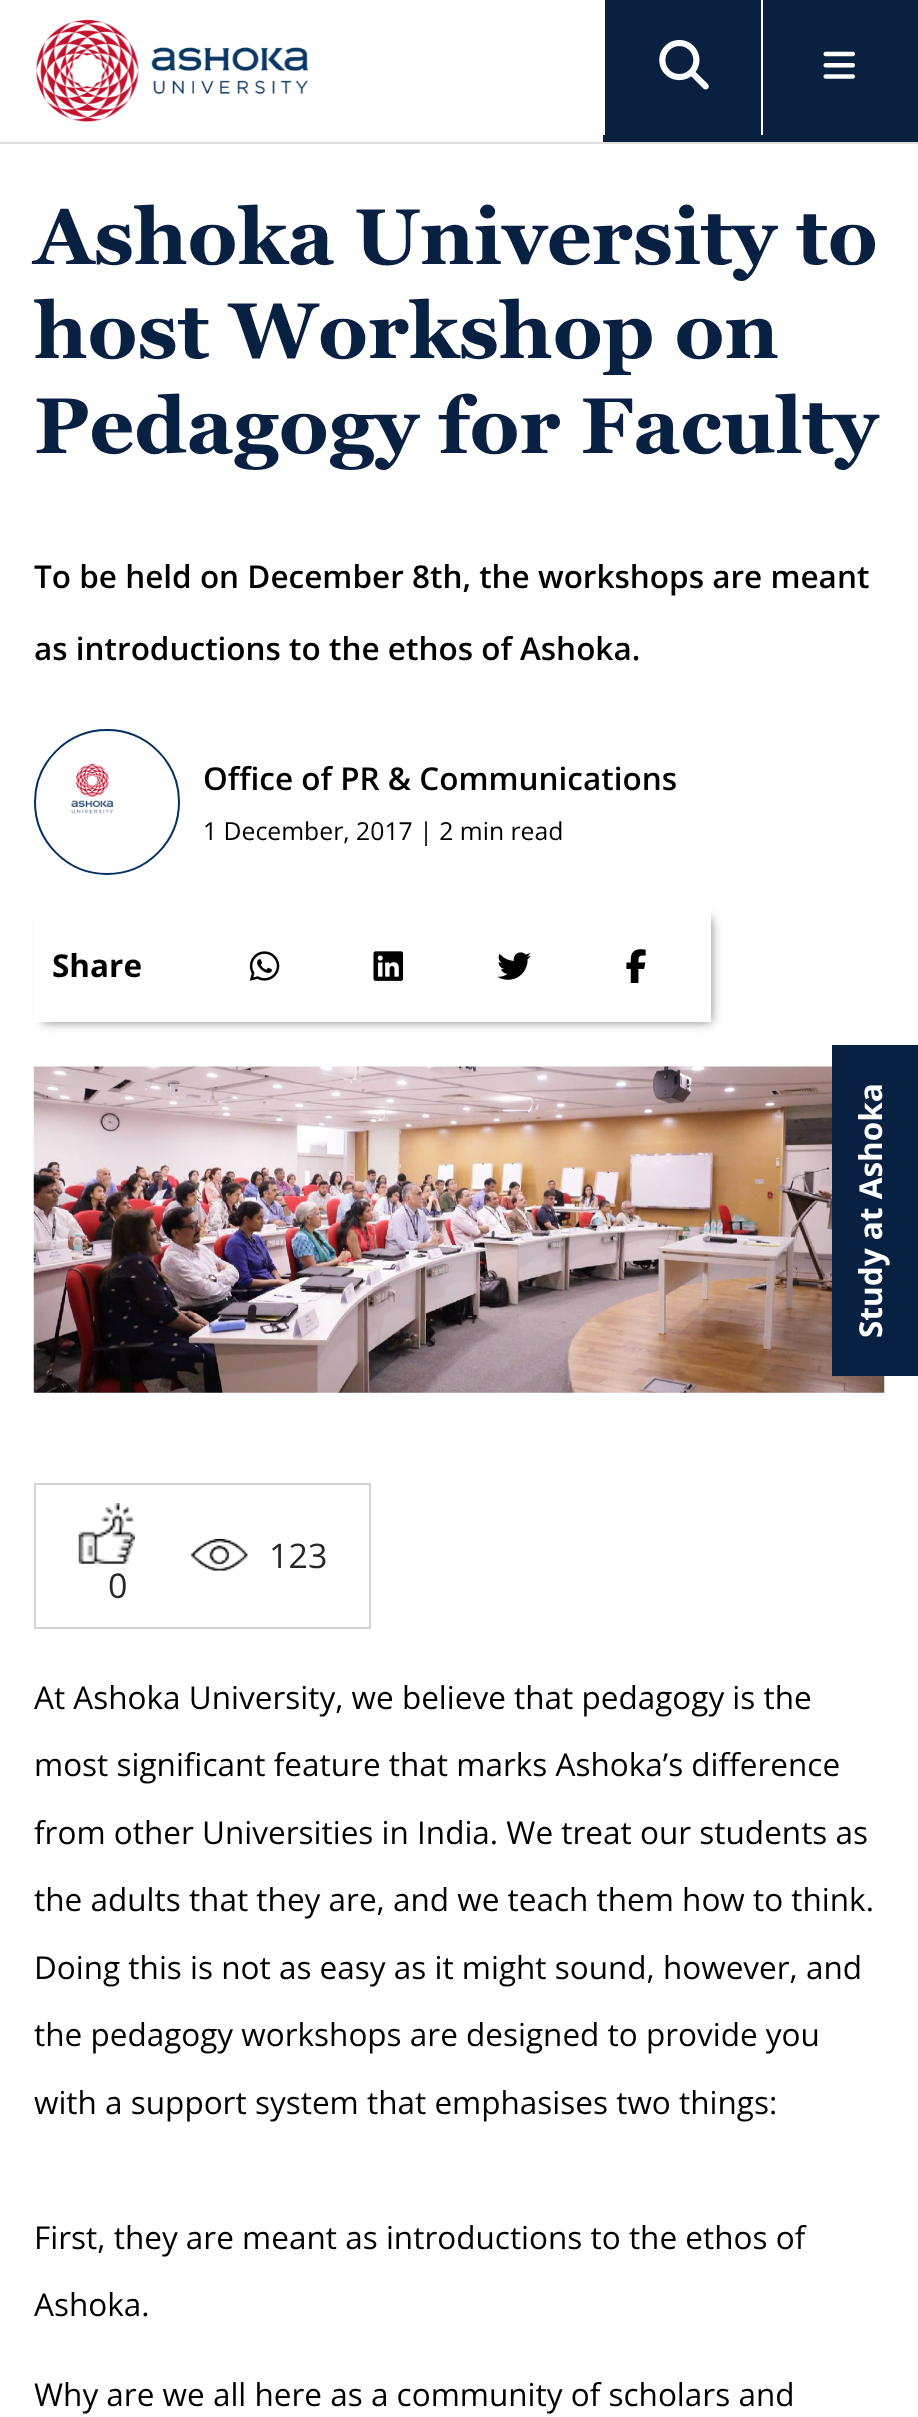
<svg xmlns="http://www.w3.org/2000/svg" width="918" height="2417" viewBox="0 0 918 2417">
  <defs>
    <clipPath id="clip1"><path d="M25 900H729V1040H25ZM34 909H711V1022H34Z" clip-rule="evenodd"/></clipPath>
  </defs>
  <rect width="100%" height="100%" fill="#fff"/>
  <path d="M0 142h918v2H0z" fill="#ddd"/>
  <image x="36" y="19" width="273" height="103" href="img/1.png"/>
  <path d="M603 0h315v142H603z" fill="#092041"/>
  <path d="M603 0h2v135H603z" fill="#fff"/>
  <image x="659" y="39" width="50" height="51" href="img/2.png"/>
  <path d="M761 0h2v135H761z" fill="#fff"/>
  <image x="823" y="51" width="32" height="28" href="img/3.png"/>
  <circle cx="107" cy="802" r="72" fill="none" stroke="#023060" stroke-width="2"/>
  <image x="71" y="764" width="43" height="50" href="img/4.png"/>
  <g clip-path="url(#clip1)">
    <path d="M43 918h668v104H43z" fill="#808080" filter="blur(5.5px)"/>
  </g>
  <image x="249" y="951" width="31" height="30" href="img/5.png"/>
  <image x="373" y="951" width="31" height="30" href="img/6.png"/>
  <image x="497" y="952" width="34" height="28" href="img/7.png"/>
  <image x="626" y="949" width="20" height="34" href="img/8.png"/>
  <image x="33" y="1066" width="852" height="327" href="img/9.png"/>
  <path d="M832 1045h86v331H832z" fill="#082041"/>
  <path d="M35 1484h335v144H35z" fill="none" stroke="#d4d4d4" stroke-width="2"/>
  <image x="191" y="1539" width="57" height="32" href="img/10.png"/>
  <image x="78" y="1503" width="57" height="61" href="img/11.png"/>
  <g font-family="Georgia" font-size="78.75" font-weight="bold" fill="#082041">
    <text x="34" y="264">Ashoka University to</text>
    <text x="34" y="358">host Workshop on</text>
    <text x="34" y="453">Pedagogy for Faculty</text>
  </g>
  <g font-family="Open Sans" font-size="31.5" font-weight="600" fill="#000">
    <text x="34" y="588">To be held on December 8th, the workshops are meant</text>
    <text x="34" y="660">as introductions to the ethos of Ashoka.</text>
    <text x="203" y="790">Office of PR &amp; Communications</text>
  </g>
  <text x="203" y="840" font-family="Open Sans" font-size="24.75" fill="#000">1 December, 2017 | 2 min read</text>
  <text x="52" y="977" font-family="Open Sans" font-size="31.5" font-weight="bold" fill="#000">Share</text>
  <text x="882" y="1338" transform="rotate(-90 882 1338)" font-family="Open Sans" font-size="31.5" font-weight="bold" fill="#fff">Study at Ashoka</text>
  <g font-family="Open Sans" font-size="34" fill="#272727">
    <text x="269" y="1568">123</text>
    <text x="108" y="1598">0</text>
  </g>
  <g font-family="Open Sans" font-size="31.5" fill="#000">
    <text x="34" y="1709">At Ashoka University, we believe that pedagogy is the</text>
    <text x="34" y="1776">most significant feature that marks Ashoka’s difference</text>
    <text x="34" y="1844">from other Universities in India. We treat our students as</text>
    <text x="34" y="1911">the adults that they are, and we teach them how to think.</text>
    <text x="34" y="1979">Doing this is not as easy as it might sound, however, and</text>
    <text x="34" y="2046">the pedagogy workshops are designed to provide you</text>
    <text x="34" y="2114">with a support system that emphasises two things:</text>
    <text x="34" y="2249">First, they are meant as introductions to the ethos of</text>
    <text x="34" y="2316">Ashoka.</text>
    <text x="34" y="2406">Why are we all here as a community of scholars and</text>
  </g>
</svg>
